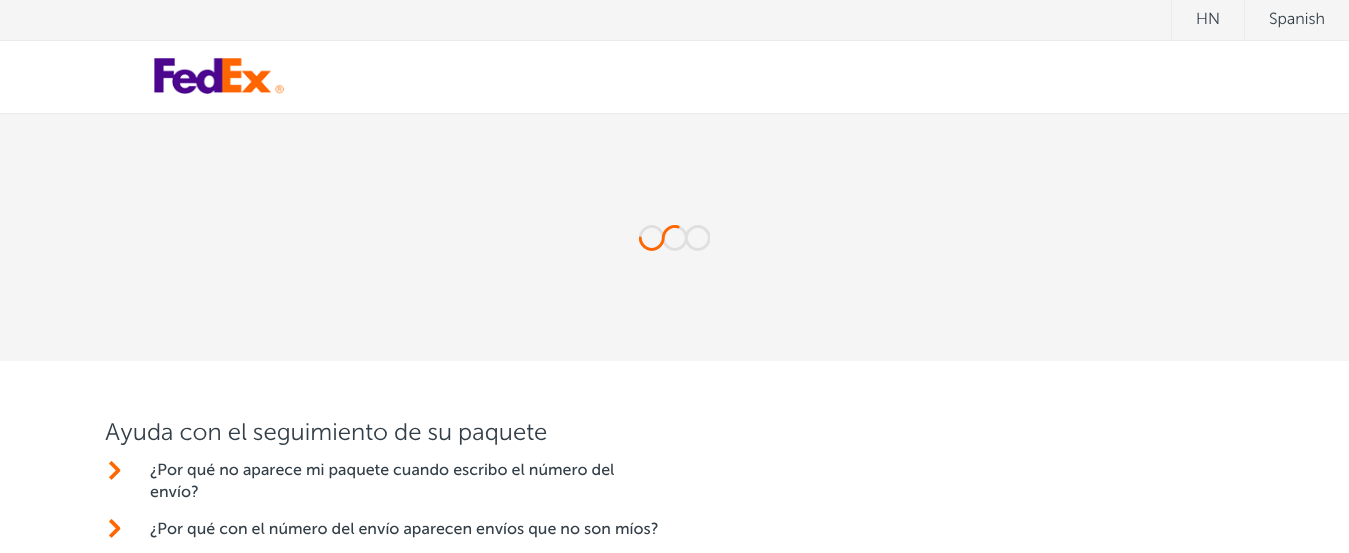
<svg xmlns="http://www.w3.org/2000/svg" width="1349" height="553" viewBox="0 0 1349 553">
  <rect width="100%" height="100%" fill="#f5f5f6"/>
  <path d="M0 40h1349v1H0z" fill="#eaebec"/>
  <path d="M1171 0h1v40H1171z" fill="#eaebec"/>
  <path d="M1244 0h1v40H1244z" fill="#eaebec"/>
  <path d="M0 41h1349v72H0z" fill="#fff"/>
  <path d="M0 113h1349v1H0z" fill="#eaebec"/>
  <image x="154" y="58" width="130" height="36" href="img/1.png"/>
  <image x="639" y="225" width="71" height="26" href="img/2.png"/>
  <path d="M0 361h1349v192H0z" fill="#fff"/>
  <image x="109" y="461" width="12" height="19" href="img/3.png"/>
  <image x="109" y="519" width="12" height="19" href="img/3.png"/>
  <g font-family="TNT" font-size="16" fill="#333f48">
    <text x="1196" y="24">HN</text>
    <text x="1269" y="24">Spanish</text>
  </g>
  <text x="105" y="440" font-family="TNT" font-size="24" fill="#333f48">Ayuda con el seguimiento de su paquete</text>
  <g font-family="'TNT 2'" font-size="16" fill="#333f48">
    <text x="150" y="475">¿Por qué no aparece mi paquete cuando escribo el número del</text>
    <text x="150" y="497">envío?</text>
    <text x="150" y="534">¿Por qué con el número del envío aparecen envíos que no son míos?</text>
  </g>
</svg>
